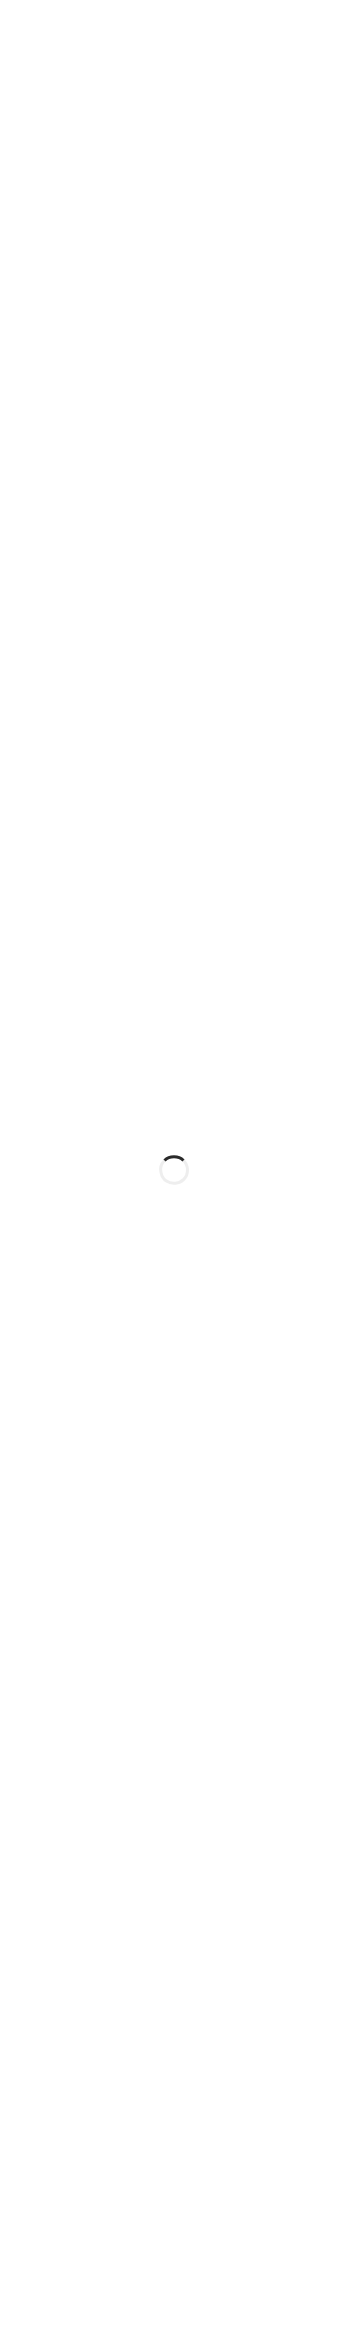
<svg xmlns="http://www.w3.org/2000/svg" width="348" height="2340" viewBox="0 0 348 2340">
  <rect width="100%" height="100%" fill="#fff"/>
  <path d="M164.5 1160.5C169.5 1155.5 178.5 1155.5 183.5 1160.5" fill="none" stroke="#2a2a2a" stroke-width="3"/>
  <path d="M183.5 1160.5C186 1163 187.5 1166.5 187.5 1170C187.5 1186 164 1188.5 161 1172.5C160 1168.5 161.5 1163.5 164.5 1160.5" fill="none" stroke="#aaaaaa33" stroke-width="3"/>
</svg>
